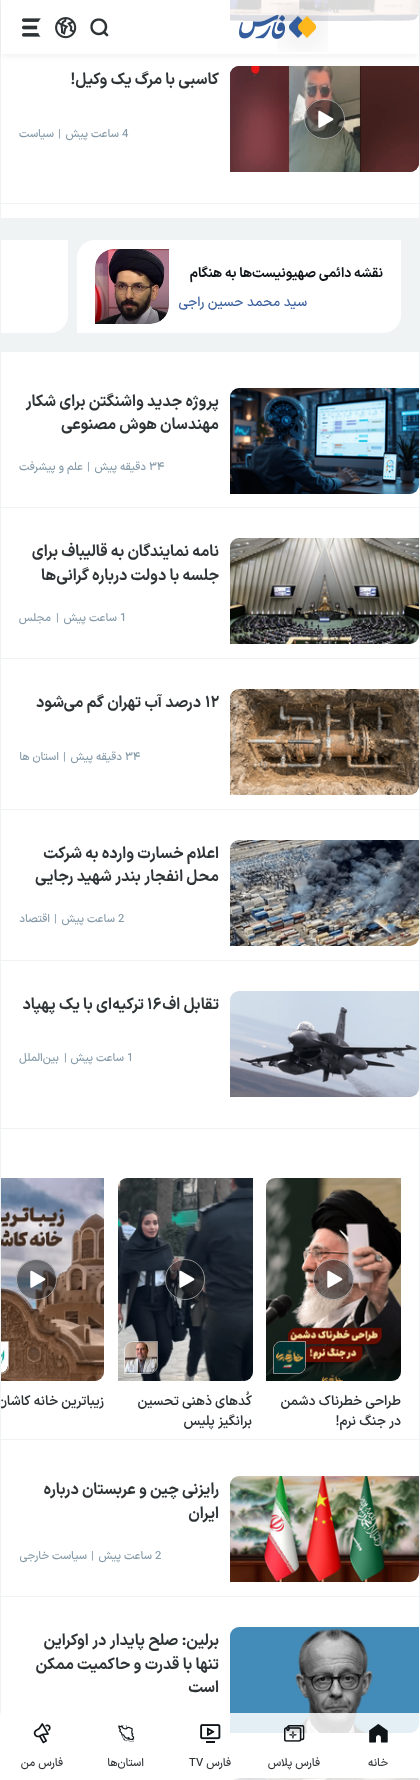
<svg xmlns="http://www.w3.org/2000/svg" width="420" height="1780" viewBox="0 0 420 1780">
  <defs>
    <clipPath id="clip1"><path d="M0 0H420V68H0ZM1 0H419V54H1Z" clip-rule="evenodd"/></clipPath>
    <clipPath id="clip2"><path d="M71 1049h60v17H71z"/></clipPath>
    <clipPath id="clip3"><path d="M1 1390h103v20H1z"/></clipPath>
  </defs>
  <rect width="100%" height="100%" fill="#fff"/>
  <path d="M419 0h1v1780H419z" fill="#eff3f4"/>
  <path d="M0 0h1v1780H0z" fill="#eff3f4"/>
  <image x="230" y="0" width="189" height="21" href="img/6.png"/>
  <image x="230" y="66" width="189" height="106" href="img/7.png"/>
  <image x="230" y="66" width="189" height="106" href="img/8.png"/>
  <g clip-path="url(#clip1)">
    <path d="M1 2h418v54H1z" fill="#0000000f" filter="blur(3.5px)"/>
  </g>
  <image x="239" y="15" width="46" height="24" href="img/2.png"/>
  <image x="277" y="2" width="51" height="50" href="img/1.png"/>
  <image x="90" y="18" width="19" height="19" href="img/3.png"/>
  <image x="55" y="17" width="22" height="22" href="img/4.png"/>
  <image x="22" y="18" width="19" height="19" href="img/5.png"/>
  <rect x="304" y="99" width="41" height="40" rx="20" fill="#0f141880"/>
  <rect x="304.5" y="99.5" width="40" height="39" rx="19.5" fill="none" stroke="#ffffff80"/>
  <image x="318" y="110" width="16" height="18" href="img/9.png"/>
  <path d="M1 203h418v1H1z" fill="#eff3f4"/>
  <path d="M1 218h418v134H1z" fill="#eff3f4"/>
  <path d="M95 240H401V315C401 325 393 333 383 333H77V258C77 248 85 240 95 240Z" fill="#fff"/>
  <image x="95" y="249" width="74" height="75" href="img/10.png"/>
  <path d="M1 240H68V315C68 325 60 333 50 333H1Z" fill="#fff"/>
  <image x="230" y="388" width="189" height="106" href="img/11.png"/>
  <path d="M1 507h418v1H1z" fill="#eff3f4"/>
  <image x="230" y="538" width="189" height="106" href="img/12.png"/>
  <path d="M1 658h418v1H1z" fill="#eff3f4"/>
  <image x="230" y="689" width="189" height="106" href="img/13.png"/>
  <path d="M1 809h418v1H1z" fill="#eff3f4"/>
  <image x="230" y="840" width="189" height="106" href="img/14.png"/>
  <path d="M1 960h418v1H1z" fill="#eff3f4"/>
  <image x="230" y="991" width="189" height="106" href="img/15.png"/>
  <path d="M1 1128h418v1H1z" fill="#eff3f4"/>
  <image x="266" y="1178" width="135" height="203" href="img/16.png"/>
  <circle cx="333.5" cy="1279.5" r="20.5" fill="#0f141880"/>
  <circle cx="333.5" cy="1279.5" r="20" fill="none" stroke="#ffffff80"/>
  <image x="327" y="1270" width="16" height="18" href="img/17.png"/>
  <path d="M281 1341.5H305.5V1366C305.5 1370 302 1373.5 298 1373.5H273.5V1349C273.5 1345 277 1341.5 281 1341.5Z" fill="none" stroke="#ffffff80"/>
  <image x="274" y="1342" width="31" height="31" href="img/18.png"/>
  <image x="118" y="1178" width="135" height="203" href="img/19.png"/>
  <rect x="165" y="1259" width="40" height="41" rx="20" fill="#0f141880"/>
  <rect x="165.5" y="1259.5" width="39" height="40" rx="19.5" fill="none" stroke="#ffffff80"/>
  <image x="179" y="1270" width="16" height="18" href="img/20.png"/>
  <path d="M133 1341.5H157.5V1365C157.5 1369.5 153.5 1373.5 149 1373.5H124.5V1350C124.5 1345.5 128.5 1341.5 133 1341.5Z" fill="none" stroke="#ffffff80"/>
  <image x="125" y="1342" width="32" height="31" href="img/21.png"/>
  <image x="1" y="1178" width="103" height="203" href="img/22.png"/>
  <circle cx="36.5" cy="1279.5" r="20.5" fill="#0f141880"/>
  <circle cx="36.5" cy="1279.5" r="20" fill="none" stroke="#ffffff80"/>
  <image x="30" y="1270" width="16" height="18" href="img/23.png"/>
  <path d="M-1 1341.5H8.5V1366C8.5 1370 5 1373.5 1 1373.5H-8.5V1349C-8.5 1345-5 1341.5-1 1341.5Z" fill="none" stroke="#ffffff80"/>
  <image x="1" y="1342" width="7" height="31" href="img/24.png"/>
  <path d="M1 1439h418v1H1z" fill="#eff3f4"/>
  <image x="230" y="1476" width="189" height="106" href="img/25.png"/>
  <path d="M1 1596h418v1H1z" fill="#eff3f4"/>
  <image x="230" y="1627" width="189" height="106" href="img/26.png"/>
  <path d="M1 1747h418v1H1z" fill="#eff3f4"/>
  <image x="233" y="1778" width="186" height="2" href="img/27.png"/>
  <path d="M0 1713h420v67H0z" fill="#ffffffd9"/>
  <image x="369" y="1724" width="19" height="19" href="img/28.png"/>
  <image x="284" y="1725" width="21" height="17" href="img/29.png"/>
  <image x="200" y="1724" width="21" height="19" href="img/30.png"/>
  <image x="118" y="1725" width="17" height="17" href="img/31.png"/>
  <image x="33" y="1723" width="18" height="21" href="img/32.png"/>
  <text x="219" y="84" font-family="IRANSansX" font-size="15.75" font-weight="bold" direction="rtl" fill="#2e3336">کاسبی با مرگ یک وکیل!</text>
  <text x="122" y="137" font-family="IRANSansX" font-size="11.25" font-weight="500" fill="#859aa8">4</text>
  <text x="119" y="137" font-family="IRANSansX" font-size="11.25" font-weight="500" direction="rtl" fill="#859aa8">ساعت پیش</text>
  <text x="58" y="137" font-family="IRANSansX" font-size="11.25" font-weight="500" fill="#859aa8">|</text>
  <text x="54" y="137" font-family="IRANSansX" font-size="11.25" font-weight="500" direction="rtl" fill="#859aa8">سیاست</text>
  <text x="383" y="277" font-family="IRANSansX" font-size="13.5" font-weight="bold" direction="rtl" fill="#0f1418">نقشه دائمی صهیونیست‌ها به هنگام</text>
  <text x="307" y="306" font-family="IRANSansX" font-size="13.5" font-weight="500" direction="rtl" fill="#385e9d">سید محمد حسین راجی</text>
  <g font-family="IRANSansX" font-size="15.75" font-weight="bold" direction="rtl" fill="#2e3336">
    <text x="219" y="406">پروژه جدید واشنگتن برای شکار</text>
    <text x="219" y="429">مهندسان هوش مصنوعی</text>
  </g>
  <text x="149" y="470" font-family="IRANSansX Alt" font-size="11.25" font-weight="500" fill="#859aa8">34</text>
  <text x="146" y="470" font-family="IRANSansX" font-size="11.25" font-weight="500" direction="rtl" fill="#859aa8">دقیقه پیش</text>
  <text x="87" y="470" font-family="IRANSansX" font-size="11.25" font-weight="500" fill="#859aa8">|</text>
  <text x="83" y="470" font-family="IRANSansX" font-size="11.25" font-weight="500" direction="rtl" fill="#859aa8">علم و پیشرفت</text>
  <g font-family="IRANSansX" font-size="15.75" font-weight="bold" direction="rtl" fill="#2e3336">
    <text x="219" y="556">نامه نمایندگان به قالیباف برای</text>
    <text x="219" y="580">جلسه با دولت درباره گرانی</text>
    <text x="56" y="580">‌ها</text>
  </g>
  <text x="120" y="621" font-family="IRANSansX" font-size="11.25" font-weight="500" fill="#859aa8">1</text>
  <text x="117" y="621" font-family="IRANSansX" font-size="11.25" font-weight="500" direction="rtl" fill="#859aa8">ساعت پیش</text>
  <text x="56" y="621" font-family="IRANSansX" font-size="11.25" font-weight="500" fill="#859aa8">|</text>
  <text x="51" y="621" font-family="IRANSansX" font-size="11.25" font-weight="500" direction="rtl" fill="#859aa8">مجلس</text>
  <text x="205" y="707" font-family="IRANSansX" font-size="15.75" font-weight="bold" fill="#2e3336">۱۲</text>
  <g font-family="IRANSansX" font-size="15.75" font-weight="bold" direction="rtl" fill="#2e3336">
    <text x="201" y="707">درصد آب تهران گم می</text>
    <text x="64" y="707">‌شود</text>
  </g>
  <text x="125" y="760" font-family="IRANSansX Alt" font-size="11.25" font-weight="500" fill="#859aa8">34</text>
  <text x="122" y="760" font-family="IRANSansX" font-size="11.25" font-weight="500" direction="rtl" fill="#859aa8">دقیقه پیش</text>
  <text x="63" y="760" font-family="IRANSansX" font-size="11.25" font-weight="500" fill="#859aa8">|</text>
  <text x="59" y="760" font-family="IRANSansX" font-size="11.25" font-weight="500" direction="rtl" fill="#859aa8">استان ها</text>
  <g font-family="IRANSansX" font-size="15.75" font-weight="bold" direction="rtl" fill="#2e3336">
    <text x="219" y="858">اعلام خسارت وارده به شرکت</text>
    <text x="219" y="881">محل انفجار بندر شهید رجایی</text>
  </g>
  <text x="118" y="922" font-family="IRANSansX" font-size="11.25" font-weight="500" fill="#859aa8">2</text>
  <text x="115" y="922" font-family="IRANSansX" font-size="11.25" font-weight="500" direction="rtl" fill="#859aa8">ساعت پیش</text>
  <text x="54" y="922" font-family="IRANSansX" font-size="11.25" font-weight="500" fill="#859aa8">|</text>
  <text x="50" y="922" font-family="IRANSansX" font-size="11.25" font-weight="500" direction="rtl" fill="#859aa8">اقتصاد</text>
  <text x="219" y="1009" font-family="IRANSansX" font-size="15.75" font-weight="bold" direction="rtl" fill="#2e3336">تقابل اف</text>
  <text x="147" y="1009" font-family="IRANSansX" font-size="15.75" font-weight="bold" fill="#2e3336">۱۶</text>
  <g font-family="IRANSansX" font-size="15.75" font-weight="bold" direction="rtl" fill="#2e3336">
    <text x="144" y="1009">ترکیه</text>
    <text x="112" y="1009">‌ای با یک پهپاد</text>
  </g>
  <g clip-path="url(#clip2)">
    <text x="127" y="1061" font-family="IRANSansX" font-size="11.25" font-weight="500" fill="#859aa8">1</text>
  </g>
  <text x="124" y="1061" font-family="IRANSansX" font-size="11.25" font-weight="500" direction="rtl" fill="#859aa8">ساعت پیش</text>
  <text x="64" y="1061" font-family="IRANSansX" font-size="11.25" font-weight="500" fill="#859aa8">|</text>
  <text x="59" y="1061" font-family="IRANSansX" font-size="11.25" font-weight="500" direction="rtl" fill="#859aa8">بین‌الملل</text>
  <g font-family="IRANSansX" font-size="13.5" font-weight="600" direction="rtl" fill="#2e3336">
    <text x="401" y="1405">طراحی خطرناک دشمن</text>
    <text x="401" y="1425">در جنگ نرم!</text>
    <text x="252" y="1405">کُدهای ذهنی تحسین</text>
    <text x="252" y="1425">برانگیز پلیس</text>
  </g>
  <g clip-path="url(#clip3)">
    <text x="104" y="1405" font-family="IRANSansX" font-size="13.5" font-weight="600" direction="rtl" fill="#2e3336">زیباترین خانه کاشان</text>
  </g>
  <g font-family="IRANSansX" font-size="15.75" font-weight="bold" direction="rtl" fill="#2e3336">
    <text x="219" y="1494">رایزنی چین و عربستان درباره</text>
    <text x="219" y="1518">ایران</text>
  </g>
  <text x="155" y="1559" font-family="IRANSansX" font-size="11.25" font-weight="500" fill="#859aa8">2</text>
  <text x="152" y="1559" font-family="IRANSansX" font-size="11.25" font-weight="500" direction="rtl" fill="#859aa8">ساعت پیش</text>
  <text x="91" y="1559" font-family="IRANSansX" font-size="11.25" font-weight="500" fill="#859aa8">|</text>
  <text x="87" y="1559" font-family="IRANSansX" font-size="11.25" font-weight="500" direction="rtl" fill="#859aa8">سیاست خارجی</text>
  <g font-family="IRANSansX" font-size="15.75" font-weight="bold" direction="rtl" fill="#2e3336">
    <text x="219" y="1645">برلین: صلح پایدار در اوکراین</text>
    <text x="219" y="1669">تنها با قدرت و حاکمیت ممکن</text>
    <text x="219" y="1692">است</text>
  </g>
  <g font-family="IRANSansX" font-size="11.25" font-weight="500" direction="rtl" fill="#2e3336">
    <text x="388" y="1766">خانه</text>
    <text x="320" y="1766">فارس پلاس</text>
    <text x="231" y="1766">فارس</text>
  </g>
  <text x="189" y="1766" font-family="IRANSansX" font-size="11.25" font-weight="500" fill="#2e3336">TV</text>
  <g font-family="IRANSansX" font-size="11.25" font-weight="500" direction="rtl" fill="#2e3336">
    <text x="144" y="1766">استان‌ها</text>
    <text x="63" y="1766">فارس من</text>
  </g>
</svg>
